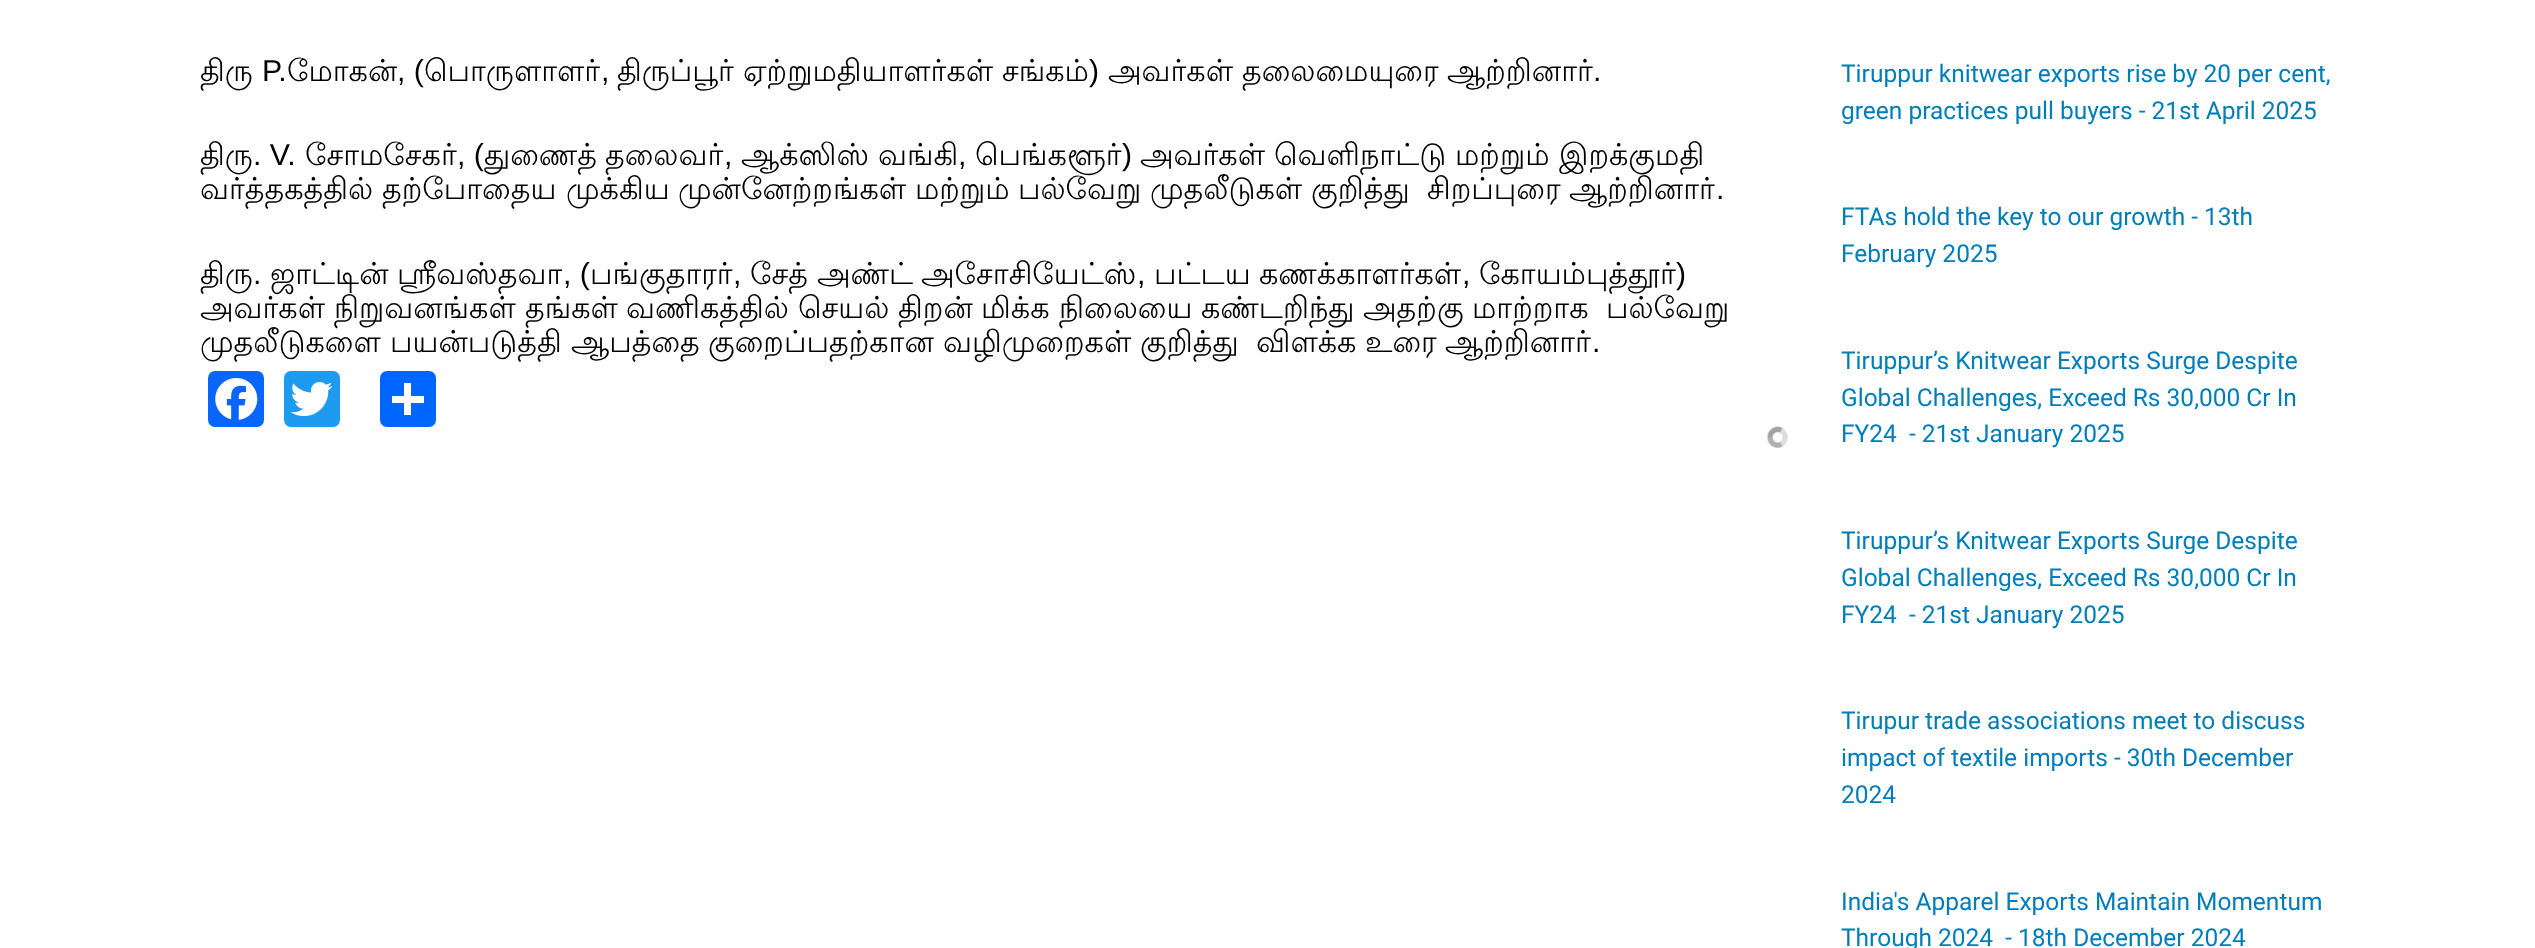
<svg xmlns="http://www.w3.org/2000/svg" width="2535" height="948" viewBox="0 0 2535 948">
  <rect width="100%" height="100%" fill="#fff"/>
  <rect x="208" y="371" width="56" height="56" rx="7" fill="#0866ff"/>
  <image x="215" y="378" width="43" height="42" href="img/1.png"/>
  <rect x="284" y="371" width="56" height="56" rx="7" fill="#1d9bf0"/>
  <image x="290" y="381" width="43" height="36" href="img/2.png"/>
  <rect x="380" y="371" width="56" height="56" rx="7" fill="#0166ff"/>
  <path d="M404 383h7v32H404z" fill="#fff"/>
  <path d="M392 396h32v7H392z" fill="#fff"/>
  <image x="1767" y="426" width="21" height="22" href="img/3.png"/>
  <text x="200" y="81" font-family="Lohit Tamil" font-size="30.25" fill="#000">திரு</text>
  <text x="262" y="81" font-family="Liberation Sans" font-size="30.25" fill="#000">P.</text>
  <text x="287" y="81" font-family="Lohit Tamil" font-size="30.25" fill="#000">மோகன்</text>
  <text x="397" y="81" font-family="Liberation Sans" font-size="30.25" fill="#000">, (</text>
  <text x="424" y="81" font-family="Lohit Tamil" font-size="30.25" fill="#000">பொருளாளர்</text>
  <text x="601" y="81" font-family="Liberation Sans" font-size="30.25" fill="#000">,</text>
  <g font-family="Lohit Tamil" font-size="30.25" fill="#000">
    <text x="617" y="81">திருப்பூர்</text>
    <text x="743" y="81">ஏற்றுமதியாளர்கள்</text>
    <text x="1002" y="81">சங்கம்</text>
  </g>
  <text x="1089" y="81" font-family="Liberation Sans" font-size="30.25" fill="#000">)</text>
  <g font-family="Lohit Tamil" font-size="30.25" fill="#000">
    <text x="1108" y="81">அவர்கள்</text>
    <text x="1242" y="81">தலைமையுரை</text>
    <text x="1447" y="81">ஆற்றினார்</text>
  </g>
  <text x="1593" y="81" font-family="Liberation Sans" font-size="30.25" fill="#000">.</text>
  <text x="200" y="165" font-family="Lohit Tamil" font-size="30.25" fill="#000">திரு</text>
  <text x="253" y="165" font-family="Liberation Sans" font-size="30.25" fill="#000">. V.</text>
  <text x="305" y="165" font-family="Lohit Tamil" font-size="30.25" fill="#000">சோமசேகர்</text>
  <text x="457" y="165" font-family="Liberation Sans" font-size="30.25" fill="#000">, (</text>
  <g font-family="Lohit Tamil" font-size="30.25" fill="#000">
    <text x="484" y="165">துணைத்</text>
    <text x="605" y="165">தலைவர்</text>
  </g>
  <text x="724" y="165" font-family="Liberation Sans" font-size="30.25" fill="#000">,</text>
  <g font-family="Lohit Tamil" font-size="30.25" fill="#000">
    <text x="741" y="165">ஆக்ஸிஸ்</text>
    <text x="878" y="165">வங்கி</text>
  </g>
  <text x="958" y="165" font-family="Liberation Sans" font-size="30.25" fill="#000">,</text>
  <text x="975" y="165" font-family="Lohit Tamil" font-size="30.25" fill="#000">பெங்களூர்</text>
  <text x="1122" y="165" font-family="Liberation Sans" font-size="30.25" fill="#000">)</text>
  <g font-family="Lohit Tamil" font-size="30.25" fill="#000">
    <text x="1140" y="165">அவர்கள்</text>
    <text x="1274" y="165">வெளிநாட்டு</text>
    <text x="1455" y="165">மற்றும்</text>
    <text x="1559" y="165">இறக்குமதி</text>
    <text x="200" y="199">வர்த்தகத்தில்</text>
    <text x="382" y="199">தற்போதைய</text>
    <text x="566" y="199">முக்கிய</text>
    <text x="678" y="199">முன்னேற்றங்கள்</text>
    <text x="915" y="199">மற்றும்</text>
    <text x="1018" y="199">பல்வேறு</text>
    <text x="1150" y="199">முதலீடுகள்</text>
    <text x="1311" y="199">குறித்து</text>
    <text x="1427" y="199">சிறப்புரை</text>
    <text x="1569" y="199">ஆற்றினார்</text>
  </g>
  <text x="1716" y="199" font-family="Liberation Sans" font-size="30.25" fill="#000">.</text>
  <text x="200" y="284" font-family="Lohit Tamil" font-size="30.25" fill="#000">திரு</text>
  <text x="253" y="284" font-family="Liberation Sans" font-size="30.25" fill="#000">.</text>
  <g font-family="Lohit Tamil" font-size="30.25" fill="#000">
    <text x="270" y="284">ஜாட்டின்</text>
    <text x="397" y="284">ஸ்ரீவஸ்தவா</text>
  </g>
  <text x="563" y="284" font-family="Liberation Sans" font-size="30.25" fill="#000">, (</text>
  <text x="590" y="284" font-family="Lohit Tamil" font-size="30.25" fill="#000">பங்குதாரர்</text>
  <text x="733" y="284" font-family="Liberation Sans" font-size="30.25" fill="#000">,</text>
  <g font-family="Lohit Tamil" font-size="30.25" fill="#000">
    <text x="750" y="284">சேத்</text>
    <text x="817" y="284">அண்ட்</text>
    <text x="921" y="284">அசோசியேட்ஸ்</text>
  </g>
  <text x="1137" y="284" font-family="Liberation Sans" font-size="30.25" fill="#000">,</text>
  <g font-family="Lohit Tamil" font-size="30.25" fill="#000">
    <text x="1154" y="284">பட்டய</text>
    <text x="1259" y="284">கணக்காளர்கள்</text>
  </g>
  <text x="1462" y="284" font-family="Liberation Sans" font-size="30.25" fill="#000">,</text>
  <text x="1479" y="284" font-family="Lohit Tamil" font-size="30.25" fill="#000">கோயம்புத்தூர்</text>
  <text x="1676" y="284" font-family="Liberation Sans" font-size="30.25" fill="#000">)</text>
  <g font-family="Lohit Tamil" font-size="30.25" fill="#000">
    <text x="200" y="318">அவர்கள்</text>
    <text x="334" y="318">நிறுவனங்கள்</text>
    <text x="525" y="318">தங்கள்</text>
    <text x="626" y="318">வணிகத்தில்</text>
    <text x="798" y="318">செயல்</text>
    <text x="898" y="318">திறன்</text>
    <text x="981" y="318">மிக்க</text>
    <text x="1059" y="318">நிலையை</text>
    <text x="1201" y="318">கண்டறிந்து</text>
    <text x="1363" y="318">அதற்கு</text>
    <text x="1472" y="318">மாற்றாக</text>
    <text x="1606" y="318">பல்வேறு</text>
    <text x="200" y="352">முதலீடுகளை</text>
    <text x="390" y="352">பயன்படுத்தி</text>
    <text x="571" y="352">ஆபத்தை</text>
    <text x="708" y="352">குறைப்பதற்கான</text>
    <text x="943" y="352">வழிமுறைகள்</text>
    <text x="1140" y="352">குறித்து</text>
    <text x="1256" y="352">விளக்க</text>
    <text x="1365" y="352">உரை</text>
    <text x="1445" y="352">ஆற்றினார்</text>
  </g>
  <text x="1592" y="352" font-family="Liberation Sans" font-size="30.25" fill="#000">.</text>
  <g font-family="Roboto" font-size="24.5" fill="#017eba">
    <text x="1841" y="82">Tiruppur knitwear exports rise by 20 per cent,</text>
    <text x="1841" y="119">green practices pull buyers - 21st April 2025</text>
    <text x="1841" y="225">FTAs hold the key to our growth - 13th</text>
    <text x="1841" y="262">February 2025</text>
    <text x="1841" y="369">Tiruppur’s Knitwear Exports Surge Despite</text>
    <text x="1841" y="406">Global Challenges, Exceed Rs 30,000 Cr In</text>
    <text x="1841" y="442" xml:space="preserve">FY24  - 21st January 2025</text>
    <text x="1841" y="549">Tiruppur’s Knitwear Exports Surge Despite</text>
    <text x="1841" y="586">Global Challenges, Exceed Rs 30,000 Cr In</text>
    <text x="1841" y="623" xml:space="preserve">FY24  - 21st January 2025</text>
    <text x="1841" y="729">Tirupur trade associations meet to discuss</text>
    <text x="1841" y="766">impact of textile imports - 30th December</text>
    <text x="1841" y="803">2024</text>
    <text x="1841" y="910">India's Apparel Exports Maintain Momentum</text>
    <text x="1841" y="946" xml:space="preserve">Through 2024  - 18th December 2024</text>
  </g>
</svg>
